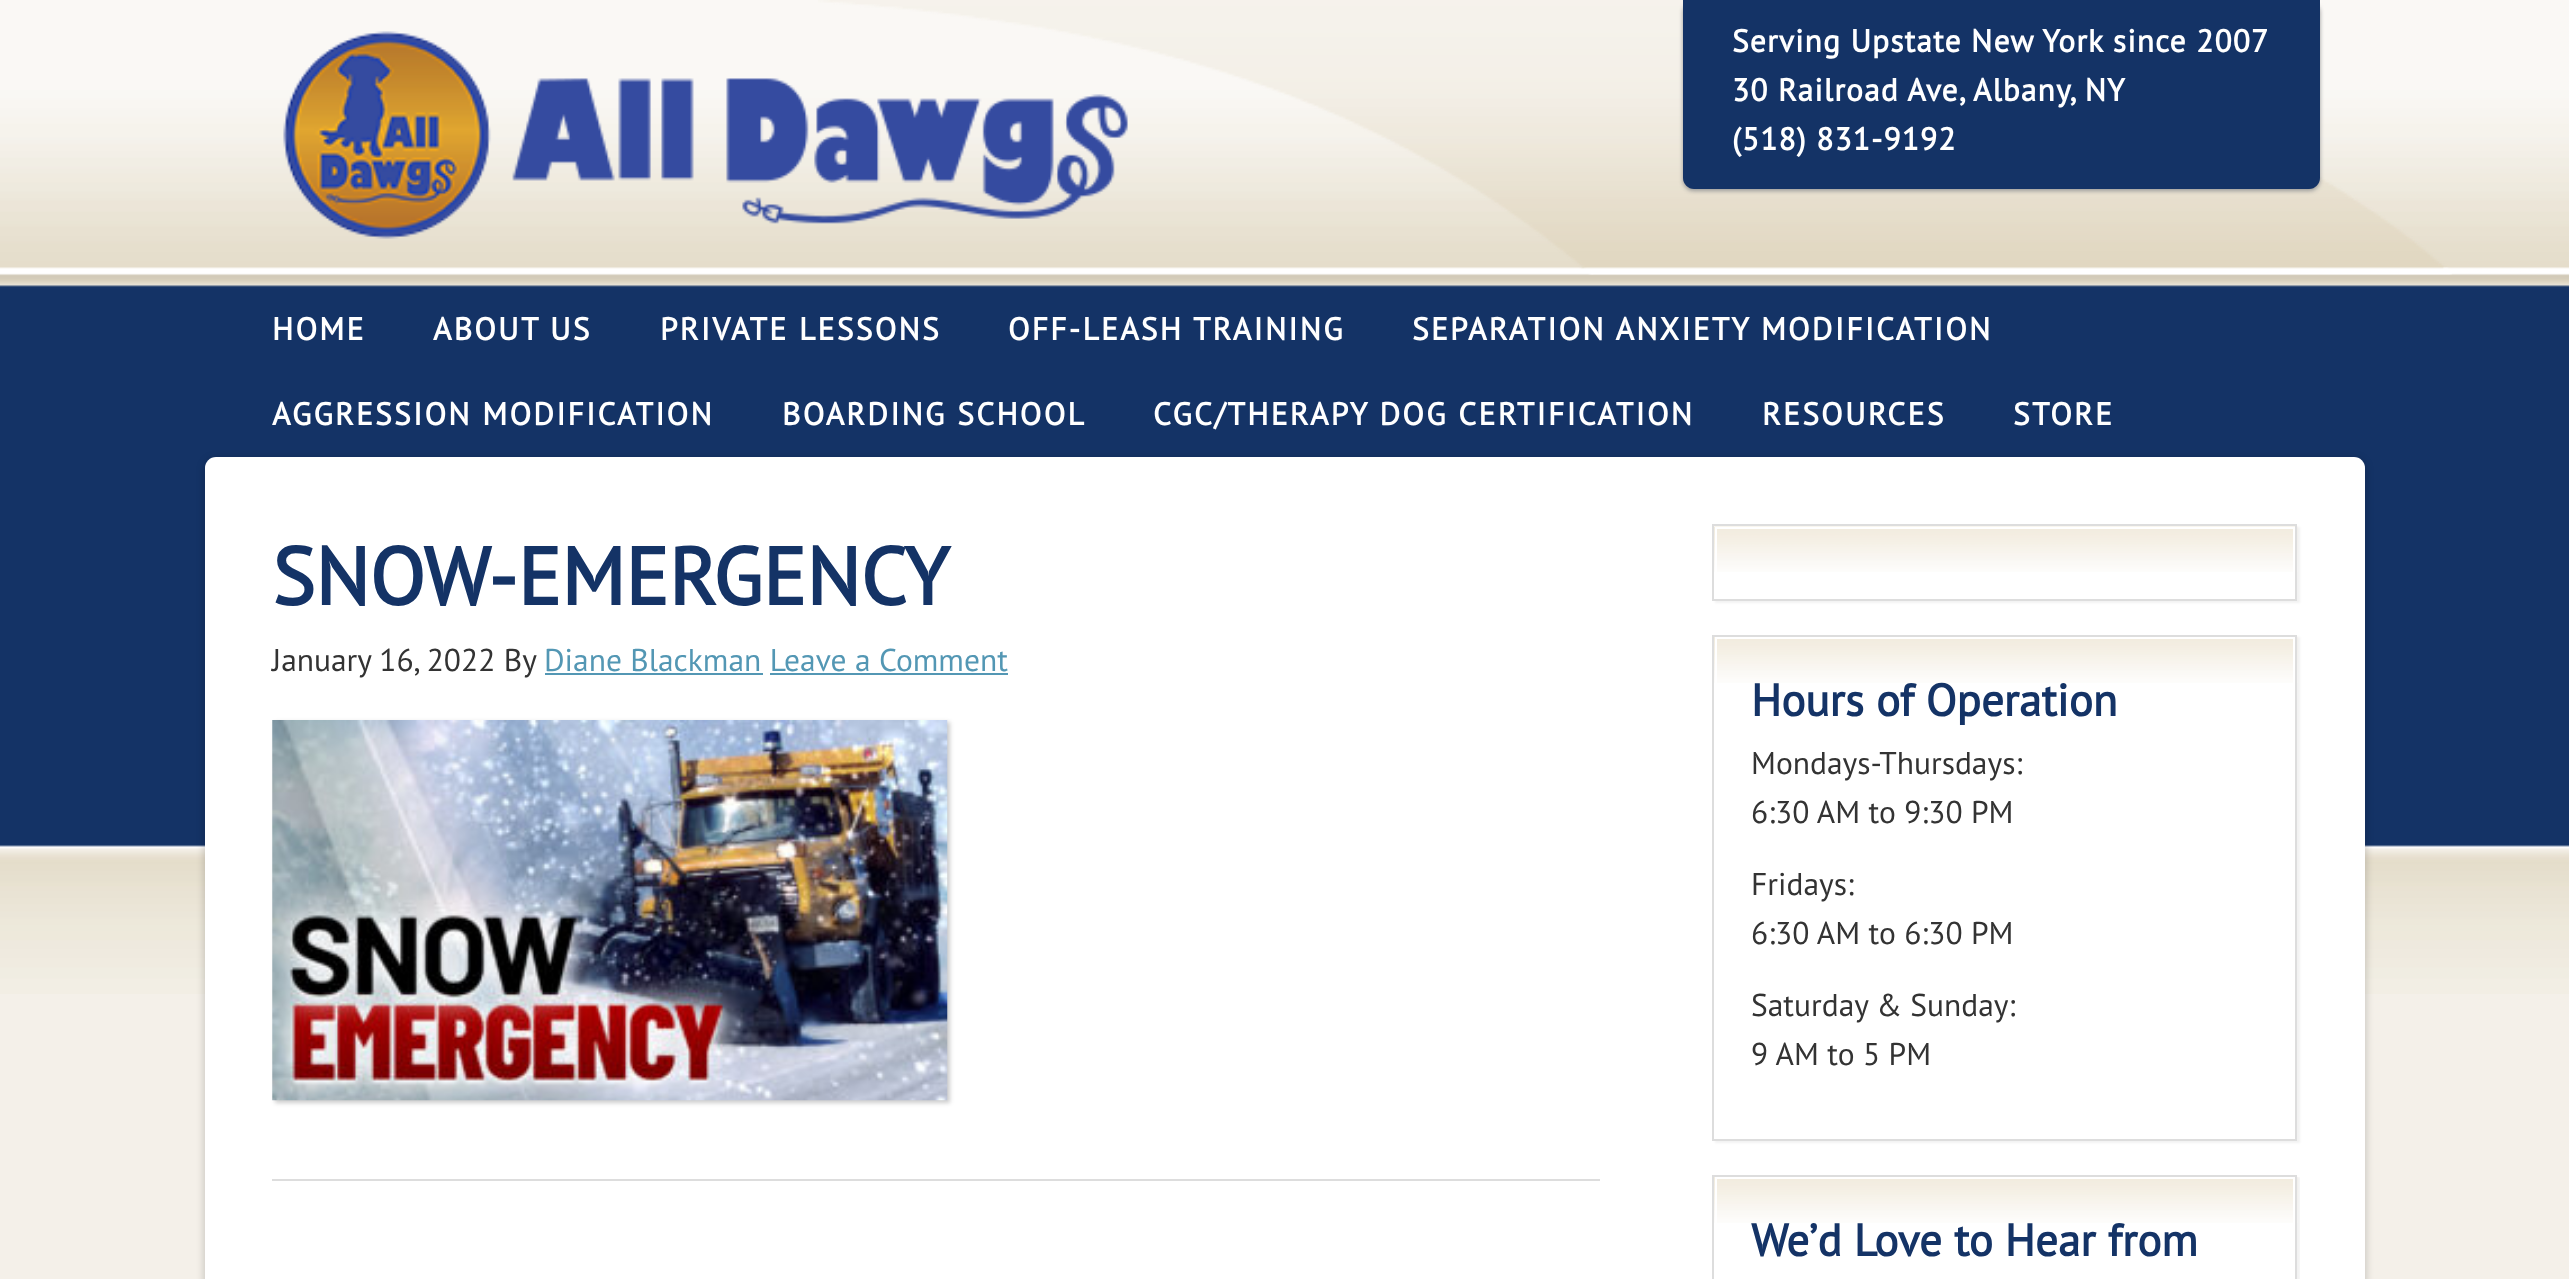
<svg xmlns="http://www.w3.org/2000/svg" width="2569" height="1279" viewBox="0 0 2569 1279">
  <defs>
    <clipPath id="clip1"><path d="M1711 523H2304V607H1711ZM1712 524H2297V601H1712Z" clip-rule="evenodd"/></clipPath>
    <clipPath id="clip2"><path d="M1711 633H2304V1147H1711ZM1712 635H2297V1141H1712Z" clip-rule="evenodd"/></clipPath>
    <clipPath id="clip3"><path d="M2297 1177h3v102H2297z"/></clipPath>
  </defs>
  <rect width="100%" height="100%" fill="#f4f0e9"/>
  <image x="0" y="0" width="2569" height="994" href="img/1.png"/>
  <image x="818" y="0" width="1634" height="275" href="img/2.png"/>
  <image x="283" y="31" width="845" height="208" href="img/3.png"/>
  <rect x="1683" y="2" width="637" height="189" rx="11" fill="#999" filter="blur(2px)"/>
  <path d="M1683 0H2320V178C2320 184 2315 189 2309 189H1694C1688 189 1683 184 1683 178Z" fill="#143366"/>
  <rect x="203" y="457" width="2164" height="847" rx="14" fill="#00000026" filter="blur(3.5px)"/>
  <rect x="205" y="457" width="2160" height="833" rx="11" fill="#fff"/>
  <path d="M545 673h218v2H545z" fill="#5397b4"/>
  <path d="M770 673h238v2H770z" fill="#5397b4"/>
  <path d="M275 722h675v381H275z" fill="#00000033" filter="blur(2px)"/>
  <image x="272" y="720" width="676" height="381" href="img/4.png"/>
  <path d="M272 1179h1328v2H272z" fill="#ddd"/>
  <g clip-path="url(#clip1)">
    <path d="M1715 527h585v76H1715z" fill="#0000000d" filter="blur(1px)"/>
  </g>
  <image x="1714" y="526" width="584" height="46" href="img/5.png"/>
  <path d="M1713 525h583v75H1713z" fill="none" stroke="#ddd" stroke-width="2"/>
  <path d="M1716 528h578v70H1716z" fill="none" stroke="#fff" stroke-width="2"/>
  <g clip-path="url(#clip2)">
    <path d="M1715 637h585v506H1715z" fill="#0000000d" filter="blur(1px)"/>
  </g>
  <image x="1714" y="636" width="584" height="47" href="img/6.png"/>
  <path d="M1713 636h583v504H1713z" fill="none" stroke="#ddd" stroke-width="2"/>
  <path d="M1716 638h578v500H1716z" fill="none" stroke="#fff" stroke-width="2"/>
  <g clip-path="url(#clip3)">
    <path d="M1715 1177h585v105H1715z" fill="#0000000d" filter="blur(1px)"/>
  </g>
  <image x="1714" y="1176" width="584" height="47" href="img/7.png"/>
  <path d="M1713 1176h583v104H1713z" fill="none" stroke="#ddd" stroke-width="2"/>
  <path d="M1716 1178h578v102H1716z" fill="none" stroke="#fff" stroke-width="2"/>
  <g font-family="PT Sans" font-size="31.5" font-weight="bold" letter-spacing="1.1" fill="#fff">
    <text x="1732" y="52">Serving Upstate New York since 2007</text>
    <text x="1732" y="101">30 Railroad Ave, Albany, NY</text>
    <text x="1732" y="150">(518) 831-9192</text>
  </g>
  <g font-family="PT Sans" font-size="31.5" font-weight="bold" letter-spacing="2.25" fill="#fff">
    <text x="272" y="340">HOME</text>
    <text x="433" y="340">ABOUT US</text>
    <text x="660" y="340">PRIVATE LESSONS</text>
    <text x="1008" y="340">OFF-LEASH TRAINING</text>
    <text x="1412" y="340">SEPARATION ANXIETY MODIFICATION</text>
    <text x="272" y="425">AGGRESSION MODIFICATION</text>
    <text x="782" y="425">BOARDING SCHOOL</text>
    <text x="1153" y="425">CGC/THERAPY DOG CERTIFICATION</text>
    <text x="1762" y="425">RESOURCES</text>
    <text x="2013" y="425">STORE</text>
  </g>
  <text x="272" y="605" font-family="PT Sans" font-size="81" font-weight="bold" fill="#143366">SNOW-EMERGENCY</text>
  <text x="272" y="671" font-family="PT Sans" font-size="31.5" fill="#333">January 16, 2022 By</text>
  <text x="544" y="671" font-family="PT Sans" font-size="31.5" fill="#5397b4">Diane Blackman Leave a Comment</text>
  <text x="1751" y="716" font-family="PT Sans" font-size="45" font-weight="bold" fill="#143366">Hours of Operation</text>
  <g font-family="PT Sans" font-size="31.5" fill="#333">
    <text x="1751" y="774">Mondays-Thursdays:</text>
    <text x="1751" y="823">6:30 AM to 9:30 PM</text>
    <text x="1751" y="895">Fridays:</text>
    <text x="1751" y="944">6:30 AM to 6:30 PM</text>
    <text x="1751" y="1016">Saturday &amp; Sunday:</text>
    <text x="1751" y="1065">9 AM to 5 PM</text>
  </g>
  <text x="1751" y="1256" font-family="PT Sans" font-size="45" font-weight="bold" fill="#143366">We’d Love to Hear from</text>
</svg>
